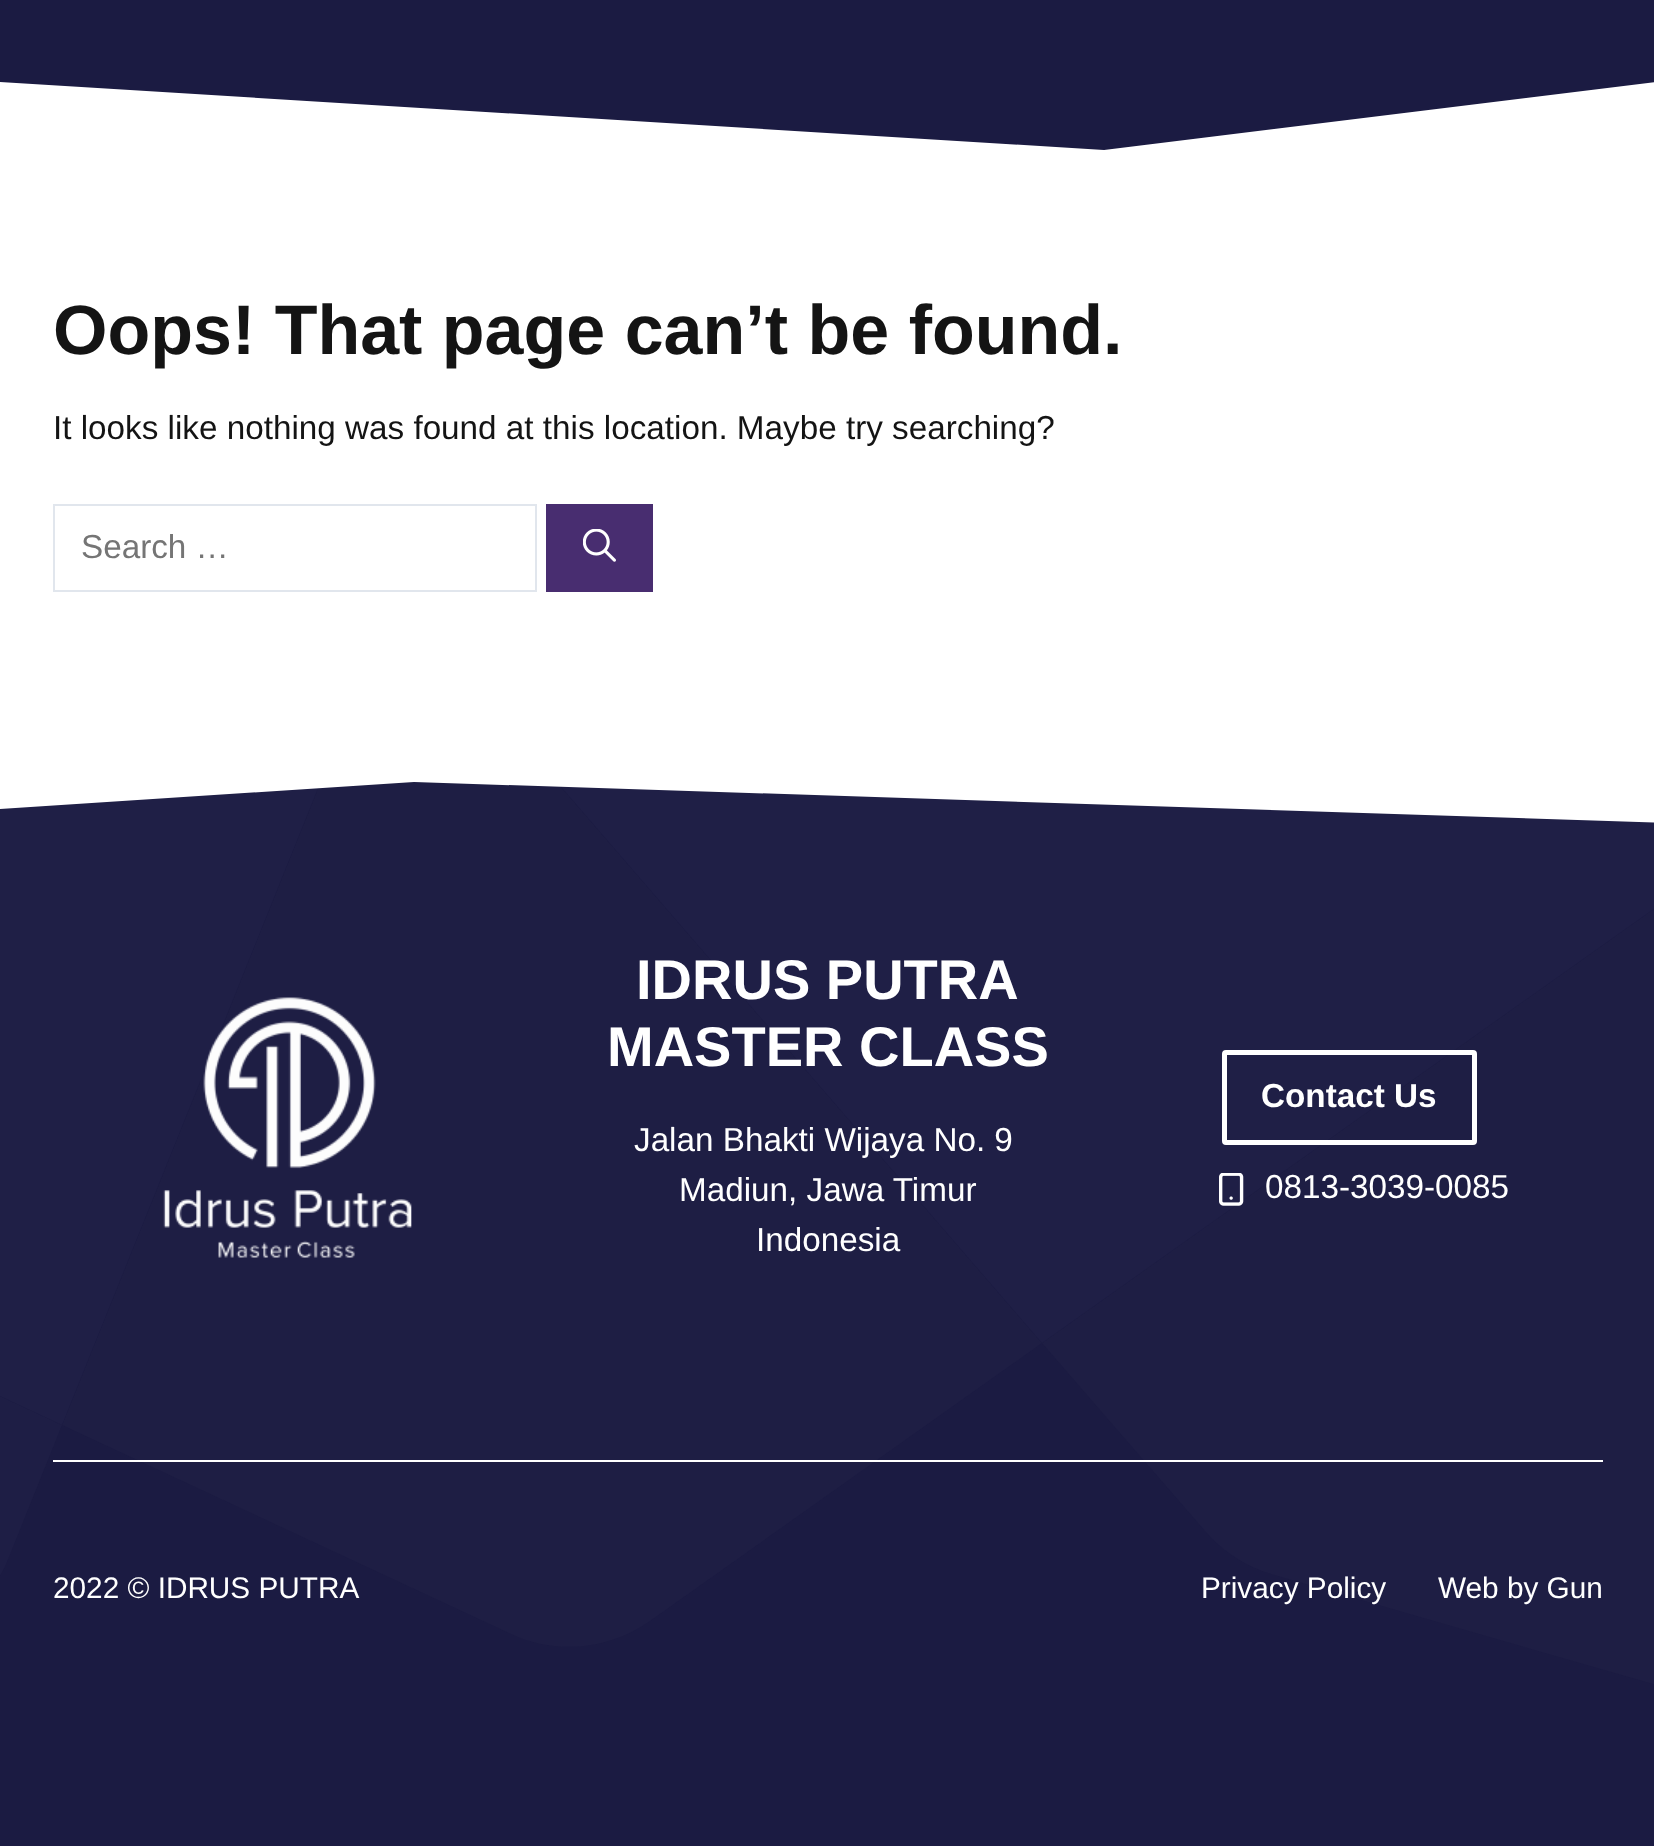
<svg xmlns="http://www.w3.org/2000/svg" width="1654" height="1846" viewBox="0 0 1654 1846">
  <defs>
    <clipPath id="clip1"><path d="M0 767h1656v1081H0z"/></clipPath>
    <clipPath id="clip2"><path d="M0 767h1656v68H0z"/></clipPath>
  </defs>
  <rect width="100%" height="100%" fill="#fff"/>
  <path d="M0 0h1654v150H0z" fill="#1b1b42"/>
  <path d="M-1 170H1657V82L1104 150L-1 82Z" fill="#fff"/>
  <path d="M54 505h482v86H54z" fill="none" stroke="#e1e6ed" stroke-width="2"/>
  <path d="M546 504h107v88H546z" fill="#482d70"/>
  <image x="583" y="529" width="33" height="33" href="img/1.png"/>
  <path d="M0 786h1654v1060H0z" fill="#1b1b42"/>
  <path d="M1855 766L1042 1343L1205 1531C1222 1551 1245 1566 1271 1574L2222 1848V766Z" fill="#1e1e44"/>
  <g clip-path="url(#clip1)">
    <path d="M327 766L62 1425L511 1634C556 1655 609 1650 650 1621L1042 1343L543 766Z" fill="#1e1e44"/>
    <path d="M543 766L1042 1343L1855 766Z" fill="#1f1f46"/>
  </g>
  <path d="M-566 1834L-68 1635C-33 1621-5 1593 9 1557L62 1425L-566 1132Z" fill="#1e1e45"/>
  <g clip-path="url(#clip1)">
    <path d="M-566 766V1132L62 1425L327 766Z" fill="#1f1f46"/>
  </g>
  <g clip-path="url(#clip2)">
    <path d="M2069 766H-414V836L414 782L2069 836Z" fill="#fff"/>
  </g>
  <image x="163" y="997" width="249" height="261" href="img/2.png"/>
  <rect x="1224.5" y="1052.5" width="250" height="90" rx="1.5" fill="none" stroke="#fff" stroke-width="5"/>
  <image x="1219" y="1173" width="25" height="33" href="img/3.png"/>
  <path d="M53 1460h1550v2H53z" fill="#fff"/>
  <text x="53" y="354" font-family="Liberation Sans" font-size="70" font-weight="bold" fill="#141414">Oops! That page can’t be found.</text>
  <text x="53" y="439" font-family="Liberation Sans" font-size="33.25" fill="#141414">It looks like nothing was found at this location. Maybe try searching?</text>
  <text x="81" y="558" font-family="Liberation Sans" font-size="33.25" fill="#757575">Search …</text>
  <g font-family="Liberation Sans" font-size="56" font-weight="bold" fill="#fff">
    <text x="636" y="999">IDRUS PUTRA</text>
    <text x="607" y="1066">MASTER CLASS</text>
  </g>
  <g font-family="Liberation Sans" font-size="33.25" fill="#fff">
    <text x="634" y="1151">Jalan Bhakti Wijaya No. 9</text>
    <text x="679" y="1201">Madiun, Jawa Timur</text>
    <text x="756" y="1251">Indonesia</text>
  </g>
  <text x="1261" y="1107" font-family="Liberation Sans" font-size="33.25" font-weight="bold" fill="#fff">Contact Us</text>
  <text x="1265" y="1198" font-family="Liberation Sans" font-size="33.25" fill="#fff">0813-3039-0085</text>
  <g font-family="Liberation Sans" font-size="29.75" fill="#fff">
    <text x="53" y="1598">2022 © IDRUS PUTRA</text>
    <text x="1201" y="1598">Privacy Policy</text>
    <text x="1438" y="1598">Web by Gun</text>
  </g>
</svg>
